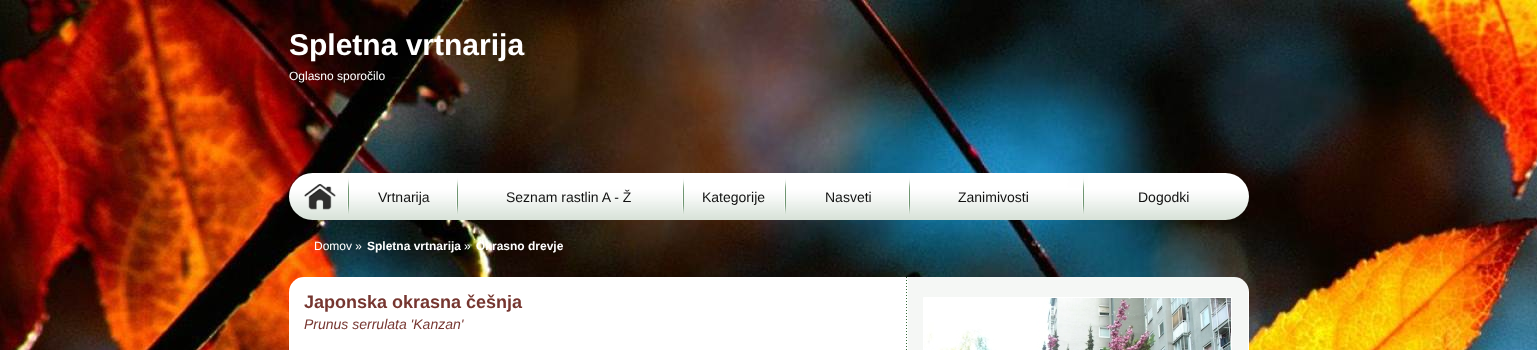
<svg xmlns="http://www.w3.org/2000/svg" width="1537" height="350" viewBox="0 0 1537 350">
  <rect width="100%" height="100%" fill="#fff"/>
  <image x="0" y="0" width="1537" height="350" href="img/1.png"/>
  <image x="289" y="173" width="960" height="47" href="img/2.png"/>
  <image x="289" y="277" width="960" height="73" href="img/3.png"/>
  <path d="M923.5 297.5h308v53H923.5z" fill="none" stroke="#fff"/>
  <image x="924" y="298" width="307" height="52" href="img/4.png"/>
  <text x="289" y="55" font-family="Liberation Sans" font-size="30" font-weight="bold" fill="#fff">Spletna vrtnarija</text>
  <text x="289" y="80" font-family="Liberation Sans" font-size="12" fill="#fff">Oglasno sporočilo</text>
  <g font-family="Liberation Sans" font-size="14" fill="#111">
    <text x="378" y="202">Vrtnarija</text>
    <text x="506" y="202">Seznam rastlin A - Ž</text>
    <text x="702" y="202">Kategorije</text>
    <text x="825" y="202">Nasveti</text>
    <text x="958" y="202">Zanimivosti</text>
    <text x="1138" y="202">Dogodki</text>
  </g>
  <text x="314" y="250" font-family="Liberation Sans" font-size="12" fill="#fff">Domov »</text>
  <text x="367" y="250" font-family="Liberation Sans" font-size="12" font-weight="bold" fill="#fff">Spletna vrtnarija</text>
  <text x="464" y="250" font-family="Liberation Sans" font-size="12" fill="#fff">»</text>
  <text x="476" y="250" font-family="Liberation Sans" font-size="12" font-weight="bold" fill="#fff">Okrasno drevje</text>
  <text x="304" y="308" font-family="Liberation Sans" font-size="18" font-weight="bold" fill="#763630">Japonska okrasna češnja</text>
  <text x="304" y="329" font-family="Liberation Sans" font-size="14" font-style="italic" fill="#763630">Prunus serrulata 'Kanzan'</text>
</svg>
